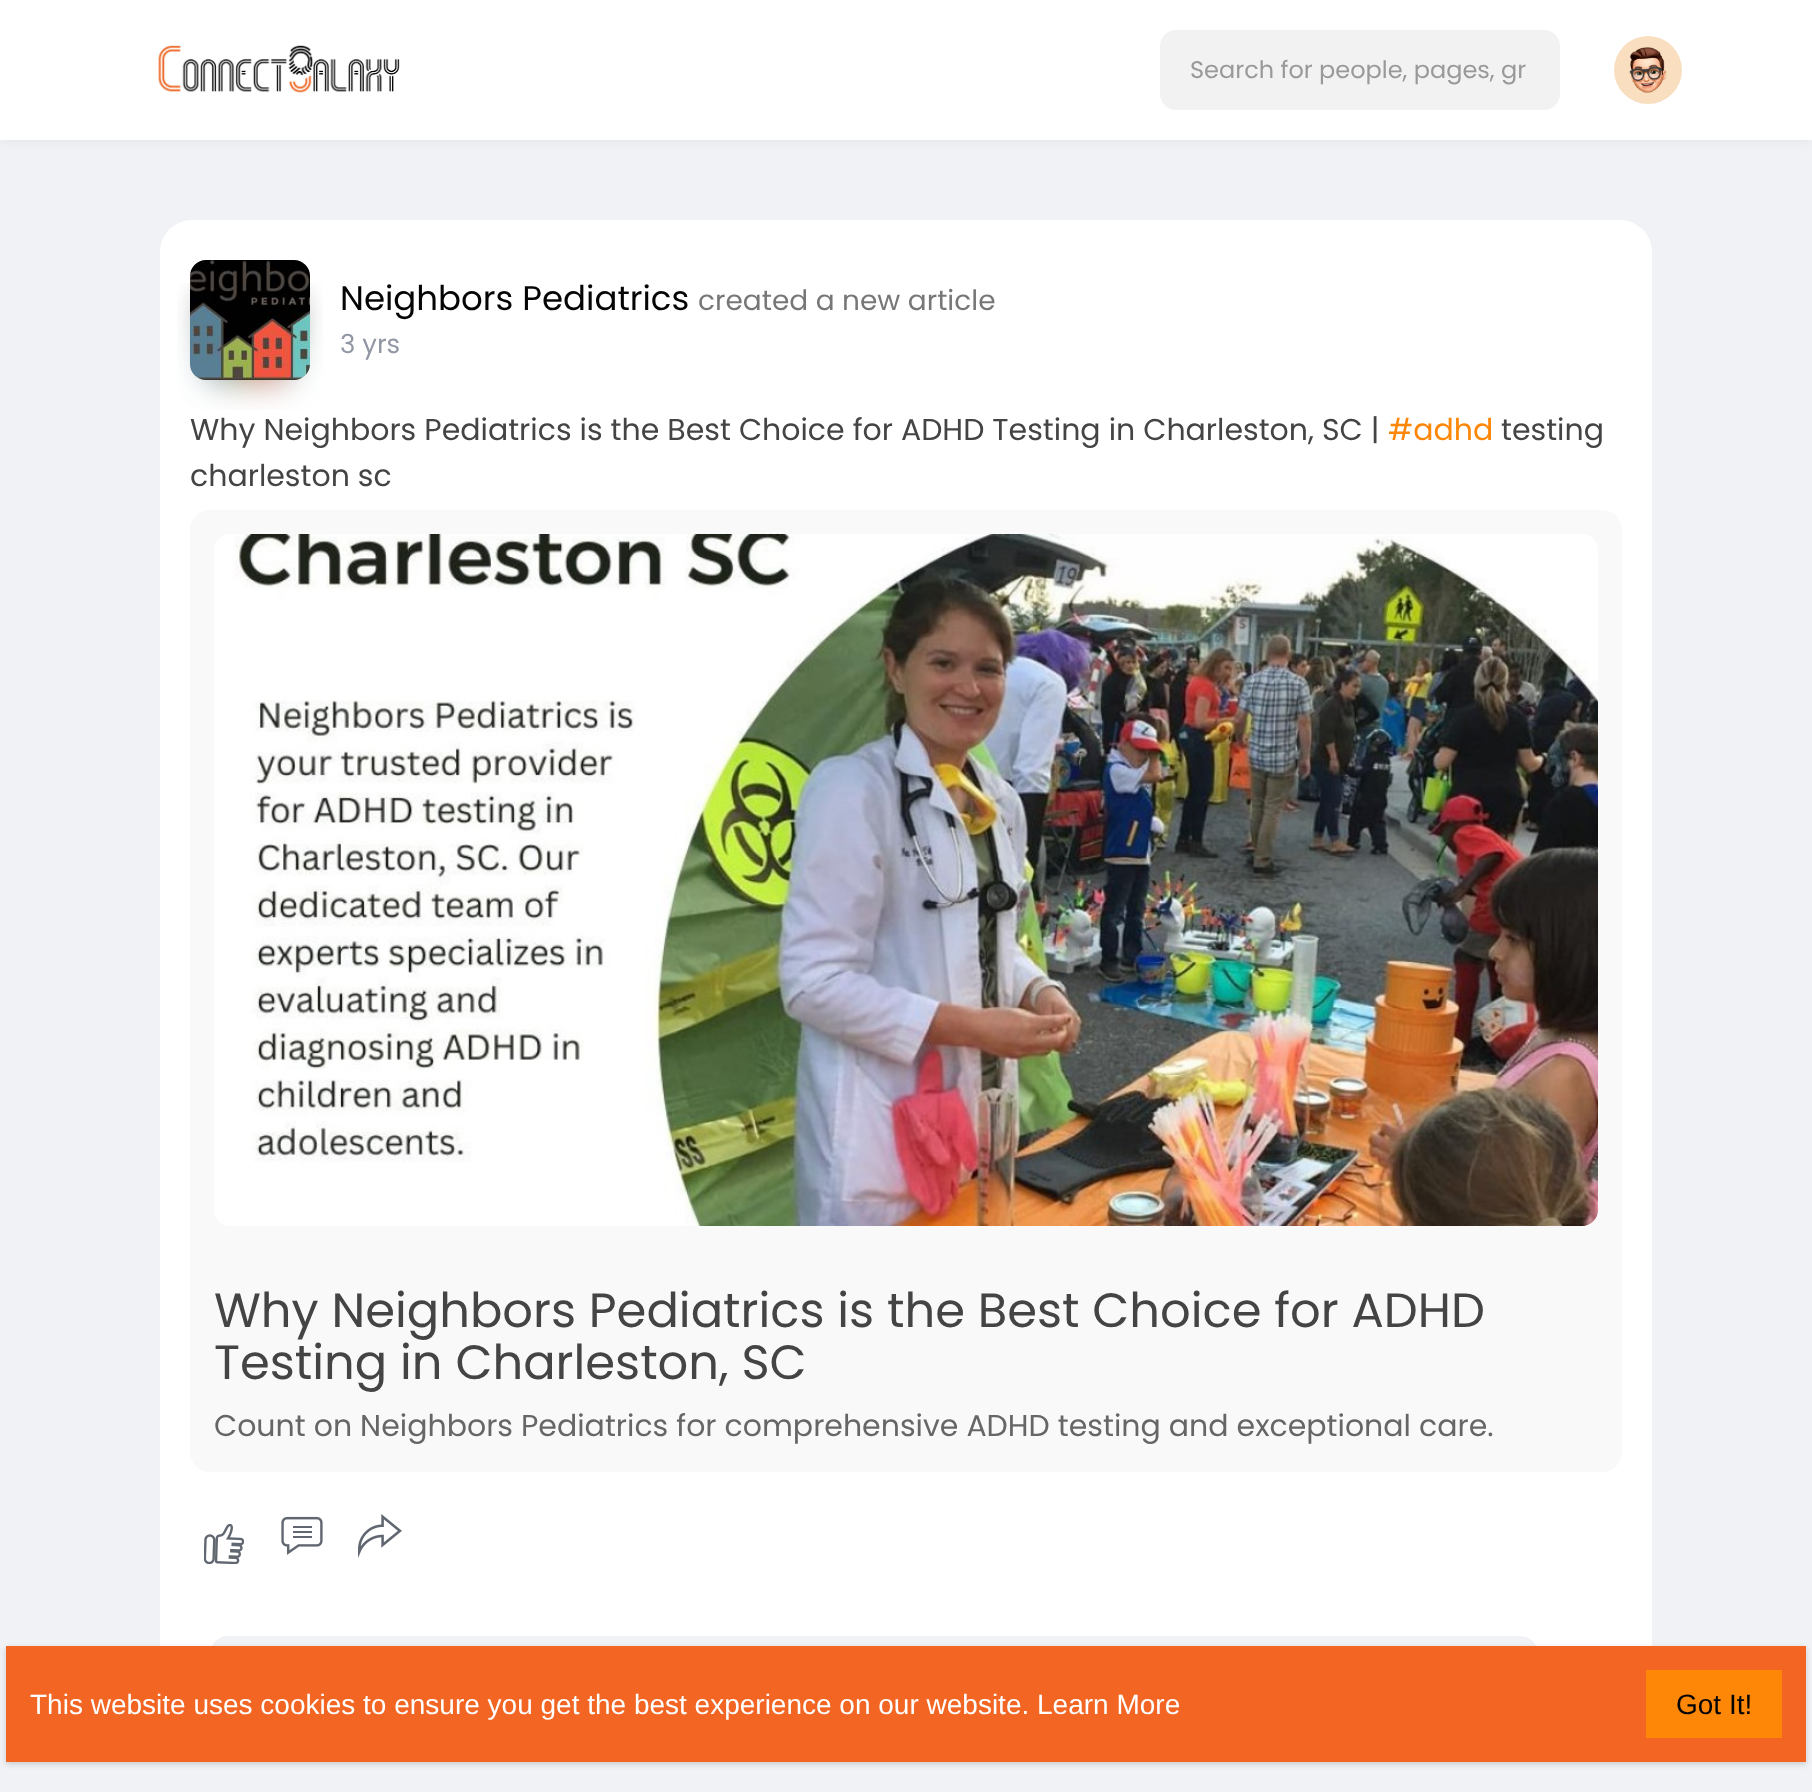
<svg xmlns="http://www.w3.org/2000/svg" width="1812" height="1792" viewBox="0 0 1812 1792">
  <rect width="100%" height="100%" fill="#f0f2f5"/>
  <path d="M0 2h1812v140H0z" fill="#0000000d" filter="blur(6px)"/>
  <path d="M0 0h1812v140H0z" fill="#fff"/>
  <image x="158" y="45" width="242" height="48" href="img/1.png"/>
  <rect x="1160" y="30" width="400" height="80" rx="16" fill="#f2f2f2"/>
  <image x="1614" y="36" width="68" height="68" href="img/2.png"/>
  <rect x="160" y="220" width="1492" height="1530" rx="32" fill="#fff"/>
  <image x="177" y="283" width="146" height="127" href="img/4.png"/>
  <image x="190" y="260" width="120" height="120" href="img/3.png"/>
  <rect x="190" y="510" width="1432" height="962" rx="20" fill="#f9f9f9"/>
  <image x="214" y="534" width="1384" height="692" href="img/5.png"/>
  <image x="204" y="1524" width="40" height="40" href="img/6.png"/>
  <image x="281" y="1516" width="42" height="39" href="img/7.png"/>
  <image x="358" y="1514" width="44" height="44" href="img/8.png"/>
  <rect x="210" y="1636" width="1328" height="84" rx="18" fill="#f0f2f5"/>
  <path d="M6 1648h1800v116H6z" fill="#0000000f" filter="blur(2px)"/>
  <path d="M6 1648h1800v116H6z" fill="#0000001a" filter="blur(3px)"/>
  <path d="M6 1646h1800v116H6z" fill="#f26522"/>
  <path d="M1646 1670h136v68H1646z" fill="#fe8708"/>
  <text x="1190" y="78" font-family="Poppins" font-size="24" fill="#999">Search for people, pages, gr</text>
  <text x="340" y="310" font-family="Poppins" font-size="34" fill="#050505">Neighbors Pediatrics</text>
  <text x="698" y="310" font-family="Poppins" font-size="28" fill="#777">created a new article</text>
  <text x="340" y="353" font-family="Poppins" font-size="26" fill="#9197a3">3 yrs</text>
  <text x="190" y="440" font-family="Poppins" font-size="30" fill="#444">Why Neighbors Pediatrics is the Best Choice for ADHD Testing in Charleston, SC |</text>
  <text x="1388" y="440" font-family="Poppins" font-size="30" fill="#fe8708">#adhd</text>
  <g font-family="Poppins" font-size="30" fill="#444">
    <text x="1501" y="440">testing</text>
    <text x="190" y="486">charleston sc</text>
  </g>
  <g font-family="Poppins" font-size="48" fill="#444">
    <text x="214" y="1327">Why Neighbors Pediatrics is the Best Choice for ADHD</text>
    <text x="214" y="1379">Testing in Charleston, SC</text>
  </g>
  <text x="214" y="1436" font-family="Poppins" font-size="30" fill="#666">Count on Neighbors Pediatrics for comprehensive ADHD testing and exceptional care.</text>
  <text x="30" y="1714" font-family="Liberation Sans" font-size="28" fill="#fff">This website uses cookies to ensure you get the best experience on our website. Learn More</text>
  <text x="1676" y="1714" font-family="Liberation Sans" font-size="28" fill="#050505">Got It!</text>
</svg>
